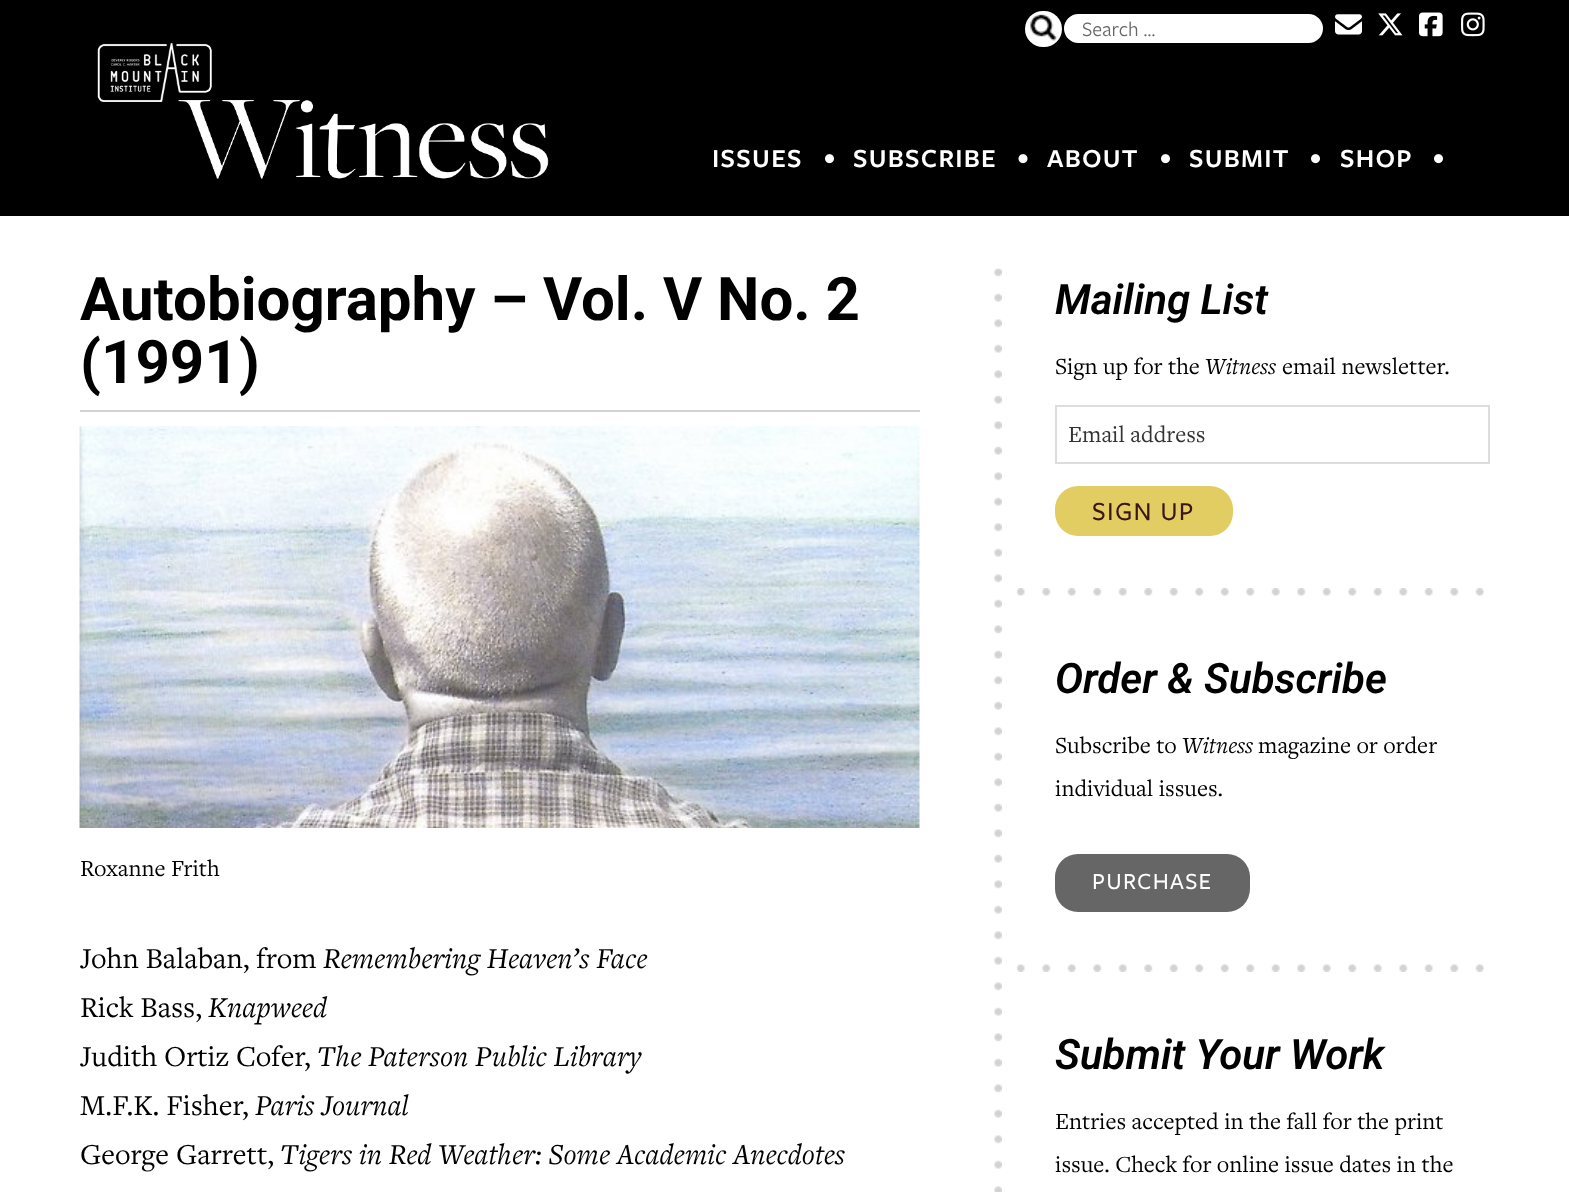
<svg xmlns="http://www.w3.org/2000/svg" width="1569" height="1192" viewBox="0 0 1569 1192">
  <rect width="100%" height="100%" fill="#fff"/>
  <path d="M0 0h1569v216H0z" fill="#000"/>
  <rect x="1025" y="11" width="37" height="36" rx="18" fill="#fff"/>
  <image x="1030" y="14" width="27" height="27" href="img/1.png"/>
  <rect x="1063" y="13" width="261" height="31" rx="15.5" fill="#fff" stroke="#000" stroke-width="2"/>
  <image x="1335" y="14" width="27" height="21" href="img/2.png"/>
  <image x="1378" y="13" width="25" height="23" href="img/3.png"/>
  <image x="1419" y="12" width="24" height="25" href="img/4.png"/>
  <image x="1461" y="12" width="24" height="25" href="img/5.png"/>
  <image x="97" y="43" width="452" height="136" href="img/6.png"/>
  <image x="825" y="154" width="9" height="10" href="img/7.png"/>
  <image x="1018" y="154" width="10" height="10" href="img/8.png"/>
  <image x="1161" y="154" width="9" height="10" href="img/7.png"/>
  <image x="1311" y="154" width="9" height="10" href="img/7.png"/>
  <image x="1434" y="154" width="9" height="10" href="img/7.png"/>
  <image x="994" y="268" width="8" height="924" href="img/9.png"/>
  <path d="M80 410h840v2H80z" fill="#d2d2d2"/>
  <image x="79" y="426" width="841" height="402" href="img/10.png"/>
  <image x="1017" y="588" width="467" height="8" href="img/11.png"/>
  <path d="M1056 406h433v57H1056z" fill="none" stroke="#ddd" stroke-width="2"/>
  <rect x="1055" y="486" width="178" height="50" rx="23" fill="#e1cd62"/>
  <image x="1017" y="964" width="467" height="8" href="img/12.png"/>
  <rect x="1055" y="854" width="195" height="58" rx="23" fill="#666"/>
  <text x="1082" y="36" font-family="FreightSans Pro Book" font-size="21" fill="#666">Search …</text>
  <g font-family="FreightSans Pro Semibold" font-size="27" font-weight="600" letter-spacing="1.25" fill="#fff">
    <text x="712" y="167">ISSUES</text>
    <text x="853" y="167">SUBSCRIBE</text>
    <text x="1047" y="167">ABOUT</text>
    <text x="1189" y="167">SUBMIT</text>
    <text x="1340" y="167">SHOP</text>
  </g>
  <g font-family="Roboto" font-size="60" font-weight="bold" fill="#000">
    <text x="80" y="320">Autobiography – Vol. V No. 2</text>
    <text x="80" y="383">(1991)</text>
  </g>
  <text x="80" y="876" font-family="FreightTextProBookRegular" font-size="24" fill="#000">Roxanne Frith</text>
  <text x="80" y="968" font-family="FreightTextProBookRegular" font-size="30" fill="#000">John Balaban, from</text>
  <text x="323" y="968" font-family="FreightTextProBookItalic" font-size="30" font-style="italic" fill="#000">Remembering Heaven’s Face</text>
  <text x="80" y="1017" font-family="FreightTextProBookRegular" font-size="30" fill="#000">Rick Bass,</text>
  <text x="208" y="1017" font-family="FreightTextProBookItalic" font-size="30" font-style="italic" fill="#000">Knapweed</text>
  <text x="80" y="1066" font-family="FreightTextProBookRegular" font-size="30" fill="#000">Judith Ortiz Cofer,</text>
  <text x="317" y="1066" font-family="FreightTextProBookItalic" font-size="30" font-style="italic" fill="#000">The Paterson Public Library</text>
  <text x="80" y="1115" font-family="FreightTextProBookRegular" font-size="30" fill="#000">M.F.K. Fisher,</text>
  <text x="255" y="1115" font-family="FreightTextProBookItalic" font-size="30" font-style="italic" fill="#000">Paris Journal</text>
  <text x="80" y="1164" font-family="FreightTextProBookRegular" font-size="30" fill="#000">George Garrett,</text>
  <text x="280" y="1164" font-family="FreightTextProBookItalic" font-size="30" font-style="italic" fill="#000">Tigers in Red Weather: Some Academic Anecdotes</text>
  <text x="1055" y="314" font-family="Roboto" font-size="42" font-weight="600" font-style="italic" fill="#000">Mailing List</text>
  <text x="1055" y="374" font-family="FreightTextProBookRegular" font-size="24" fill="#000">Sign up for the</text>
  <text x="1205" y="374" font-family="FreightTextProBookItalic" font-size="24" font-style="italic" fill="#000">Witness</text>
  <text x="1282" y="374" font-family="FreightTextProBookRegular" font-size="24" fill="#000">email newsletter.</text>
  <text x="1068" y="442" font-family="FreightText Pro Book" font-size="24" fill="#333">Email address</text>
  <text x="1092" y="520" font-family="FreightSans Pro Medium" font-size="27" font-weight="500" letter-spacing="1.25" fill="#3c1414">SIGN UP</text>
  <text x="1055" y="693" font-family="Roboto" font-size="42" font-weight="600" font-style="italic" fill="#000">Order &amp; Subscribe</text>
  <text x="1055" y="753" font-family="FreightTextProBookRegular" font-size="24" fill="#000">Subscribe to</text>
  <text x="1182" y="753" font-family="FreightTextProBookItalic" font-size="24" font-style="italic" fill="#000">Witness</text>
  <g font-family="FreightTextProBookRegular" font-size="24" fill="#000">
    <text x="1258" y="753">magazine or order</text>
    <text x="1055" y="796">individual issues.</text>
  </g>
  <text x="1092" y="889" font-family="FreightSans Pro Medium" font-size="24" font-weight="500" letter-spacing="1.25" fill="#fff">PURCHASE</text>
  <text x="1055" y="1069" font-family="Roboto" font-size="42" font-weight="600" font-style="italic" fill="#000">Submit Your Work</text>
  <g font-family="FreightTextProBookRegular" font-size="24" fill="#000">
    <text x="1055" y="1129">Entries accepted in the fall for the print</text>
    <text x="1055" y="1172">issue. Check for online issue dates in the</text>
  </g>
</svg>
